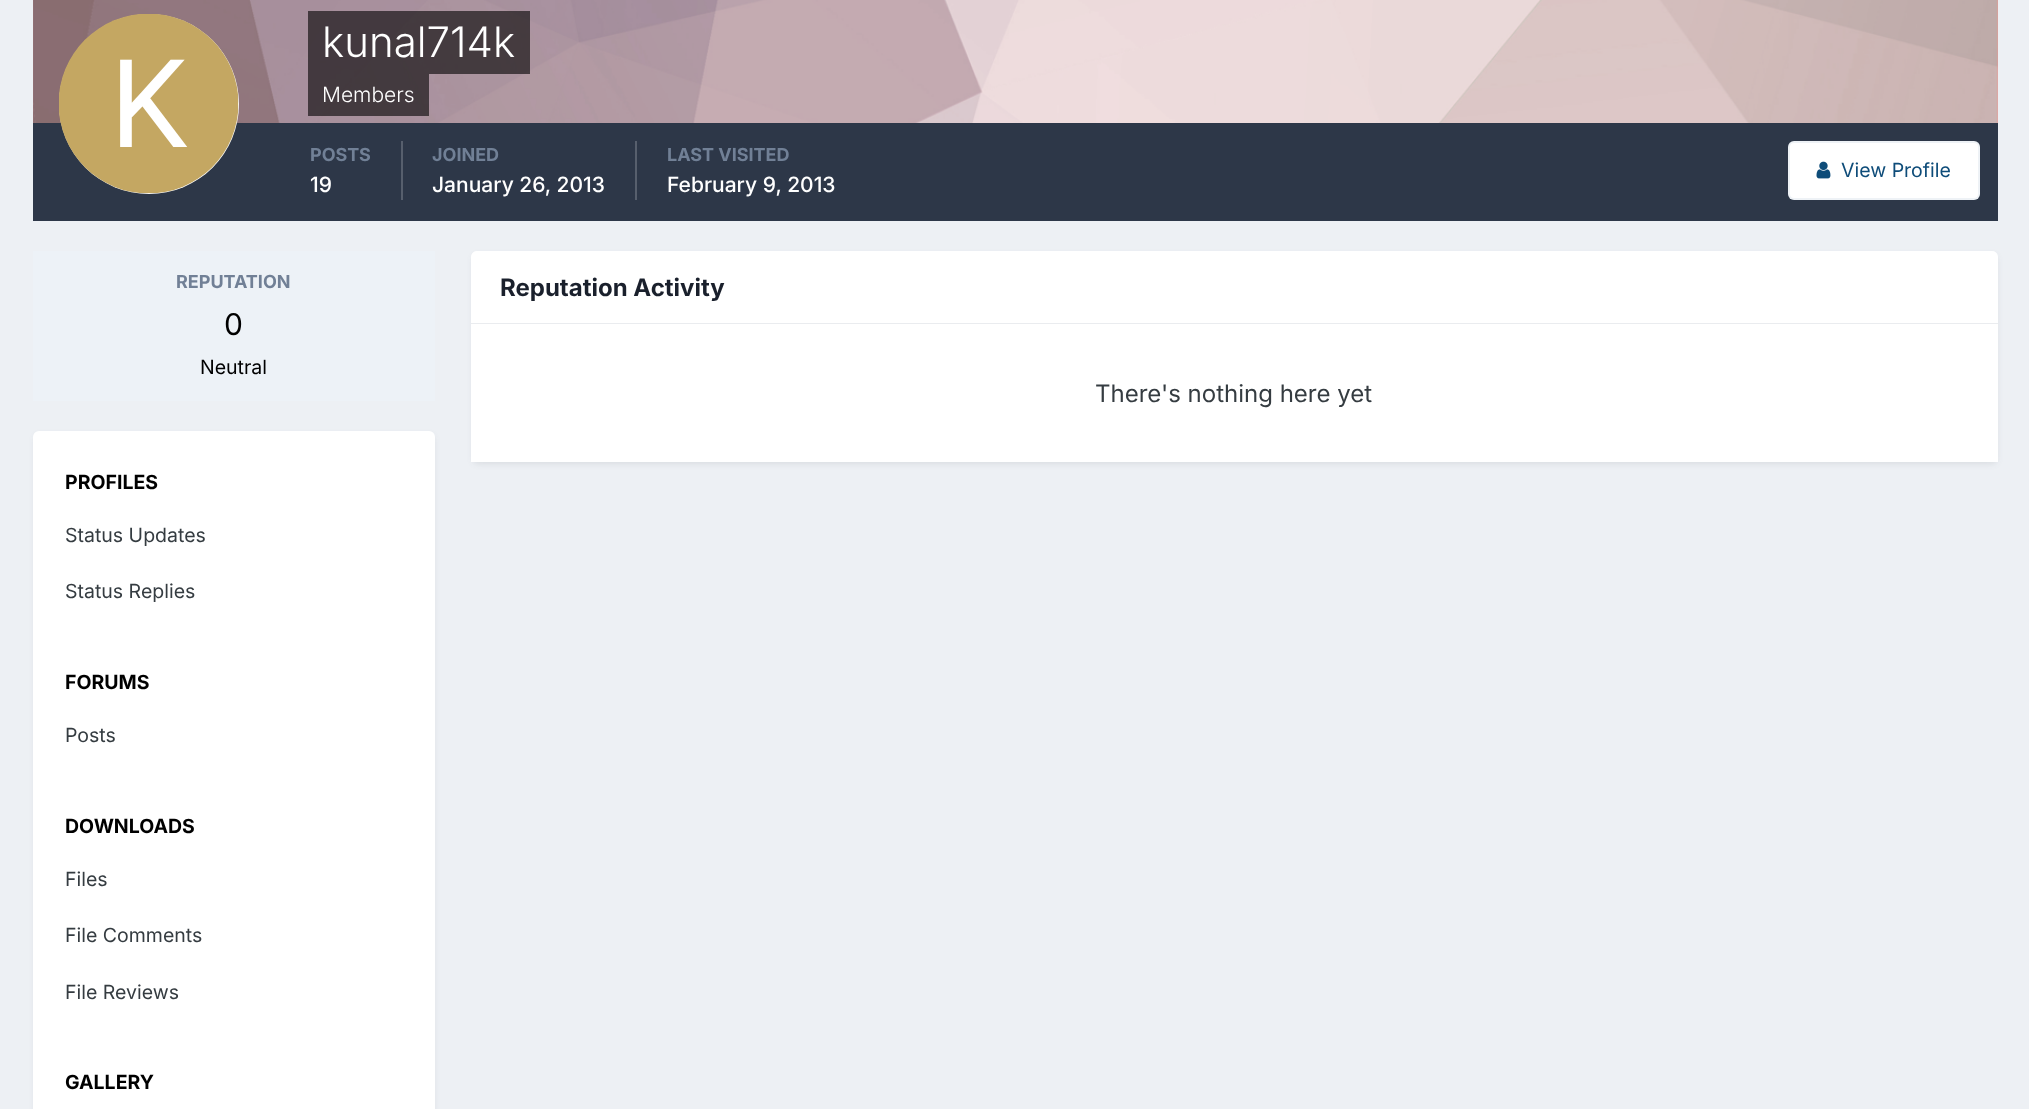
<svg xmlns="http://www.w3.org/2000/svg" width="2029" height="1109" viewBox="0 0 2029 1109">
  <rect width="100%" height="100%" fill="#edf0f4"/>
  <path d="M33 0h1965v123H33z" fill="#ff99a7"/>
  <image x="33" y="0" width="1965" height="123" href="img/1.png"/>
  <path d="M33 123h1965v98H33z" fill="#2d3748"/>
  <circle cx="149" cy="104" r="90" fill="#fff"/>
  <image x="59" y="14" width="180" height="180" href="img/2.png"/>
  <path d="M308 11h222v63H308z" fill="#00000099"/>
  <path d="M308 74h121v42H308z" fill="#00000099"/>
  <path d="M401 141h2v59H401z" fill="#575f6d"/>
  <path d="M635 141h2v59H635z" fill="#575f6d"/>
  <rect x="1788" y="141" width="192" height="59" rx="6" fill="#fff"/>
  <rect x="1789" y="142" width="190" height="57" rx="5" fill="none" stroke="#0e4c7912" stroke-width="2"/>
  <image x="1816" y="161" width="15" height="18" href="img/3.png"/>
  <path d="M33 251h402v150H33z" fill="#edf2f7"/>
  <rect x="35" y="435" width="399" height="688" rx="5" fill="#2d37481a" filter="blur(3px)"/>
  <rect x="33" y="431" width="402" height="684" rx="6" fill="#fff"/>
  <rect x="473" y="255" width="1524" height="209" rx="5" fill="#2d37481a" filter="blur(3px)"/>
  <path d="M477 251H1992C1995.5 251 1998 253.5 1998 257V324H471V257C471 253.5 473.5 251 477 251Z" fill="#fff"/>
  <path d="M471 323h1527v1H471z" fill="#eaecef"/>
  <path d="M471 324h1527v138H471z" fill="#fff"/>
  <text x="322" y="57" font-family="Inter" font-size="42" font-weight="300" fill="#fff">kunal714k</text>
  <text x="322" y="102" font-family="Inter" font-size="21" font-weight="300" fill="#fff">Members</text>
  <text x="310" y="161" font-family="Inter" font-size="18" font-weight="bold" fill="#718096">POSTS</text>
  <text x="310" y="192" font-family="Inter" font-size="21" font-weight="500" fill="#fff">19</text>
  <text x="432" y="161" font-family="Inter" font-size="18" font-weight="bold" fill="#718096">JOINED</text>
  <text x="432" y="192" font-family="Inter" font-size="21" font-weight="500" fill="#fff">January 26, 2013</text>
  <text x="667" y="161" font-family="Inter" font-size="18" font-weight="bold" fill="#718096">LAST VISITED</text>
  <text x="667" y="192" font-family="Inter" font-size="21" font-weight="500" fill="#fff">February 9, 2013</text>
  <text x="1841" y="177" font-family="Inter" font-size="19.5" fill="#0e4c79">View Profile</text>
  <text x="176" y="288" font-family="Inter" font-size="18" font-weight="bold" fill="#718096">REPUTATION</text>
  <text x="224" y="335" font-family="Inter" font-size="30" fill="#000">0</text>
  <text x="200" y="374" font-family="Inter" font-size="19.5" fill="#000">Neutral</text>
  <text x="65" y="489" font-family="Inter" font-size="19.5" font-weight="bold" fill="#000">PROFILES</text>
  <g font-family="Inter" font-size="19.5" fill="#353c41">
    <text x="65" y="542">Status Updates</text>
    <text x="65" y="598">Status Replies</text>
  </g>
  <text x="65" y="689" font-family="Inter" font-size="19.5" font-weight="bold" fill="#000">FORUMS</text>
  <text x="65" y="742" font-family="Inter" font-size="19.5" fill="#353c41">Posts</text>
  <text x="65" y="833" font-family="Inter" font-size="19.5" font-weight="bold" fill="#000">DOWNLOADS</text>
  <g font-family="Inter" font-size="19.5" fill="#353c41">
    <text x="65" y="886">Files</text>
    <text x="65" y="942">File Comments</text>
    <text x="65" y="999">File Reviews</text>
  </g>
  <text x="65" y="1089" font-family="Inter" font-size="19.5" font-weight="bold" fill="#000">GALLERY</text>
  <text x="500" y="296" font-family="Inter" font-size="24" font-weight="bold" fill="#1a202c">Reputation Activity</text>
  <text x="1095" y="402" font-family="Inter" font-size="24" fill="#353c41">There's nothing here yet</text>
</svg>
